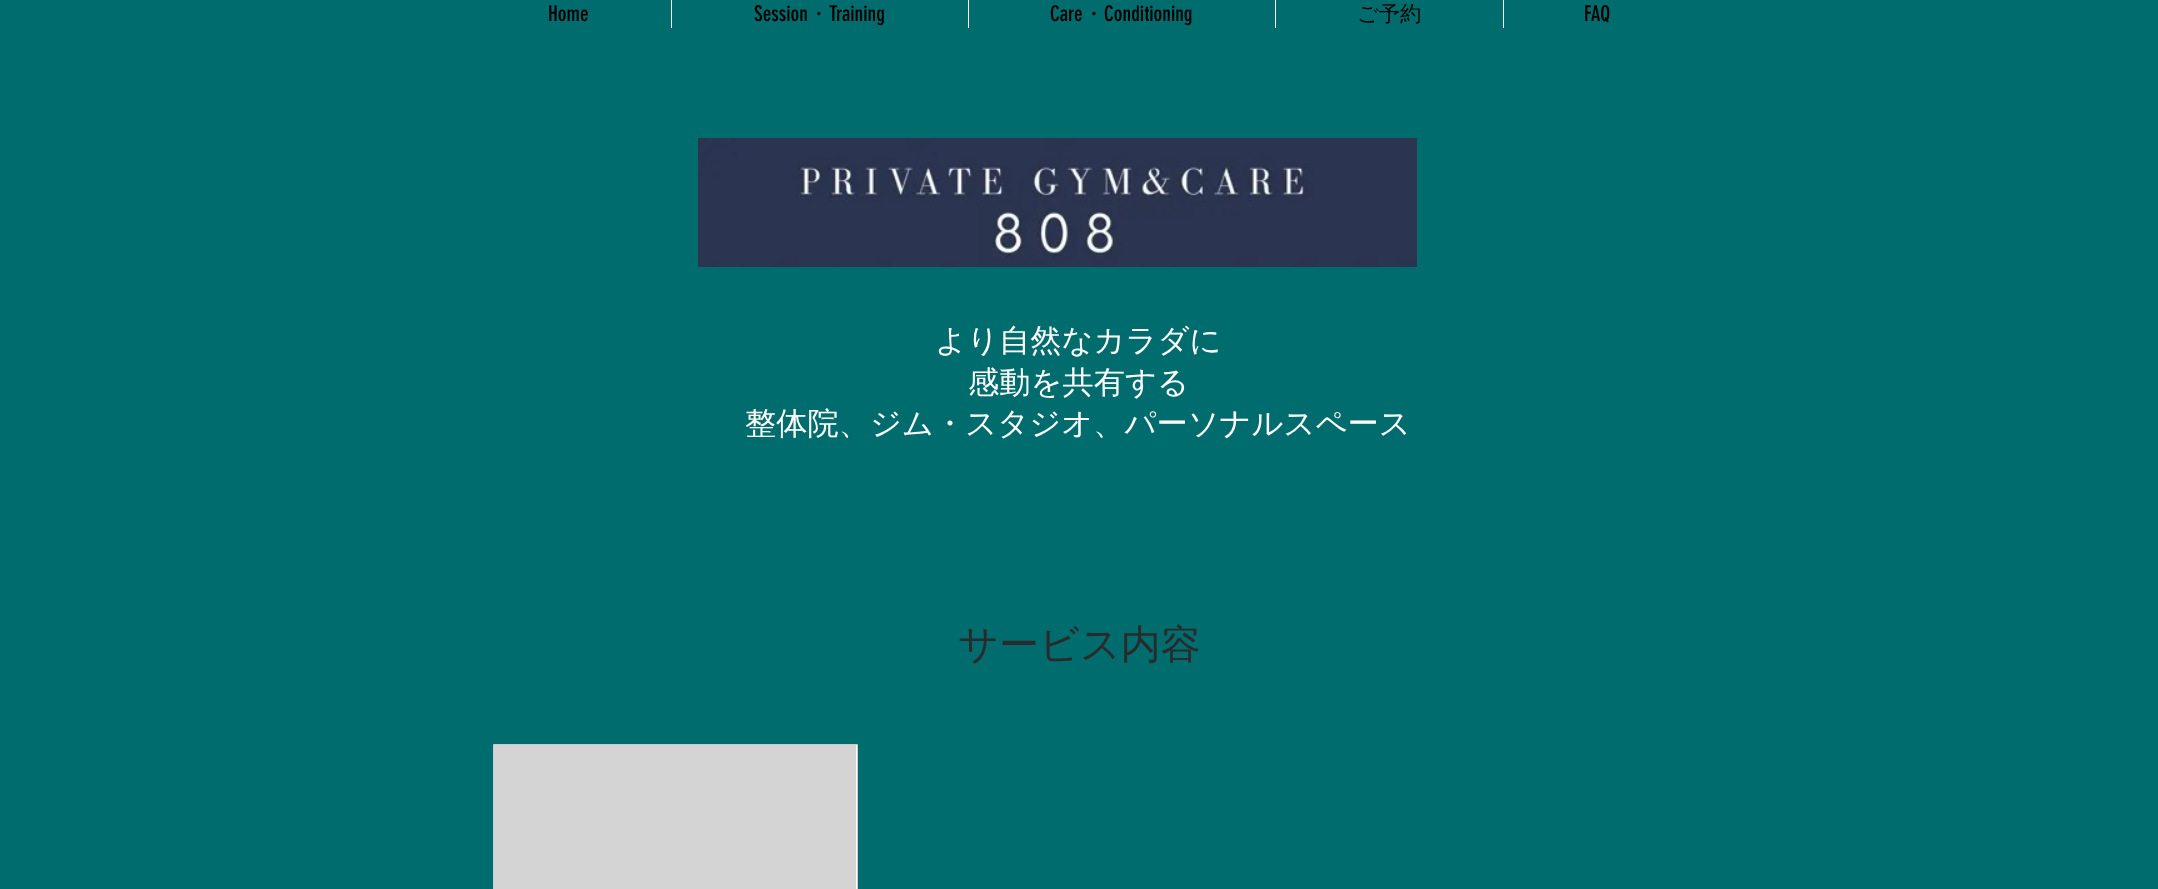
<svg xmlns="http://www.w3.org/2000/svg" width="2158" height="889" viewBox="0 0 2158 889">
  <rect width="100%" height="100%" fill="#006c6d"/>
  <path d="M671 0h1v28H671z" fill="#fff"/>
  <path d="M968 0h1v28H968z" fill="#fff"/>
  <path d="M1275 0h1v28H1275z" fill="#fff"/>
  <path d="M1503 0h1v28H1503z" fill="#fff"/>
  <image x="698" y="138" width="719" height="129" href="img/1.png"/>
  <path d="M856 745h1v144H856z" fill="#fff"/>
  <path d="M493.5 744.5h364v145H493.5z" fill="none" stroke="#ccc"/>
  <path d="M494 745h362v144H494z" fill="#d4d4d4"/>
  <g font-family="'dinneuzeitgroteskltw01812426'" font-size="21.25" fill="#000">
    <text x="548" y="21">Home</text>
    <text x="754" y="21">Session</text>
  </g>
  <text x="808" y="21" font-family="WenQuanYi Zen Hei" font-size="21.25" font-weight="500" fill="#000">・</text>
  <g font-family="'dinneuzeitgroteskltw01812426'" font-size="21.25" fill="#000">
    <text x="829" y="21">Training</text>
    <text x="1050" y="21">Care</text>
  </g>
  <text x="1083" y="21" font-family="WenQuanYi Zen Hei" font-size="21.25" font-weight="500" fill="#000">・</text>
  <text x="1104" y="21" font-family="'dinneuzeitgroteskltw01812426'" font-size="21.25" fill="#000">Conditioning</text>
  <text x="1357" y="21" font-family="WenQuanYi Zen Hei" font-size="21.25" font-weight="500" fill="#000">ご予約</text>
  <text x="1584" y="21" font-family="'dinneuzeitgroteskltw01812426'" font-size="21.25" fill="#000">FAQ</text>
  <g font-family="WenQuanYi Zen Hei" font-size="31.25" font-weight="500" fill="#fff">
    <text x="935" y="351">より自然なカラダに</text>
    <text x="968" y="393">感動を共有する</text>
    <text x="745" y="434">整体院、ジム・スタジオ、パーソナルスペース</text>
  </g>
  <text x="958" y="658" font-family="WenQuanYi Zen Hei" font-size="40" font-weight="500" fill="#2a2a2a">サービス内容</text>
</svg>
